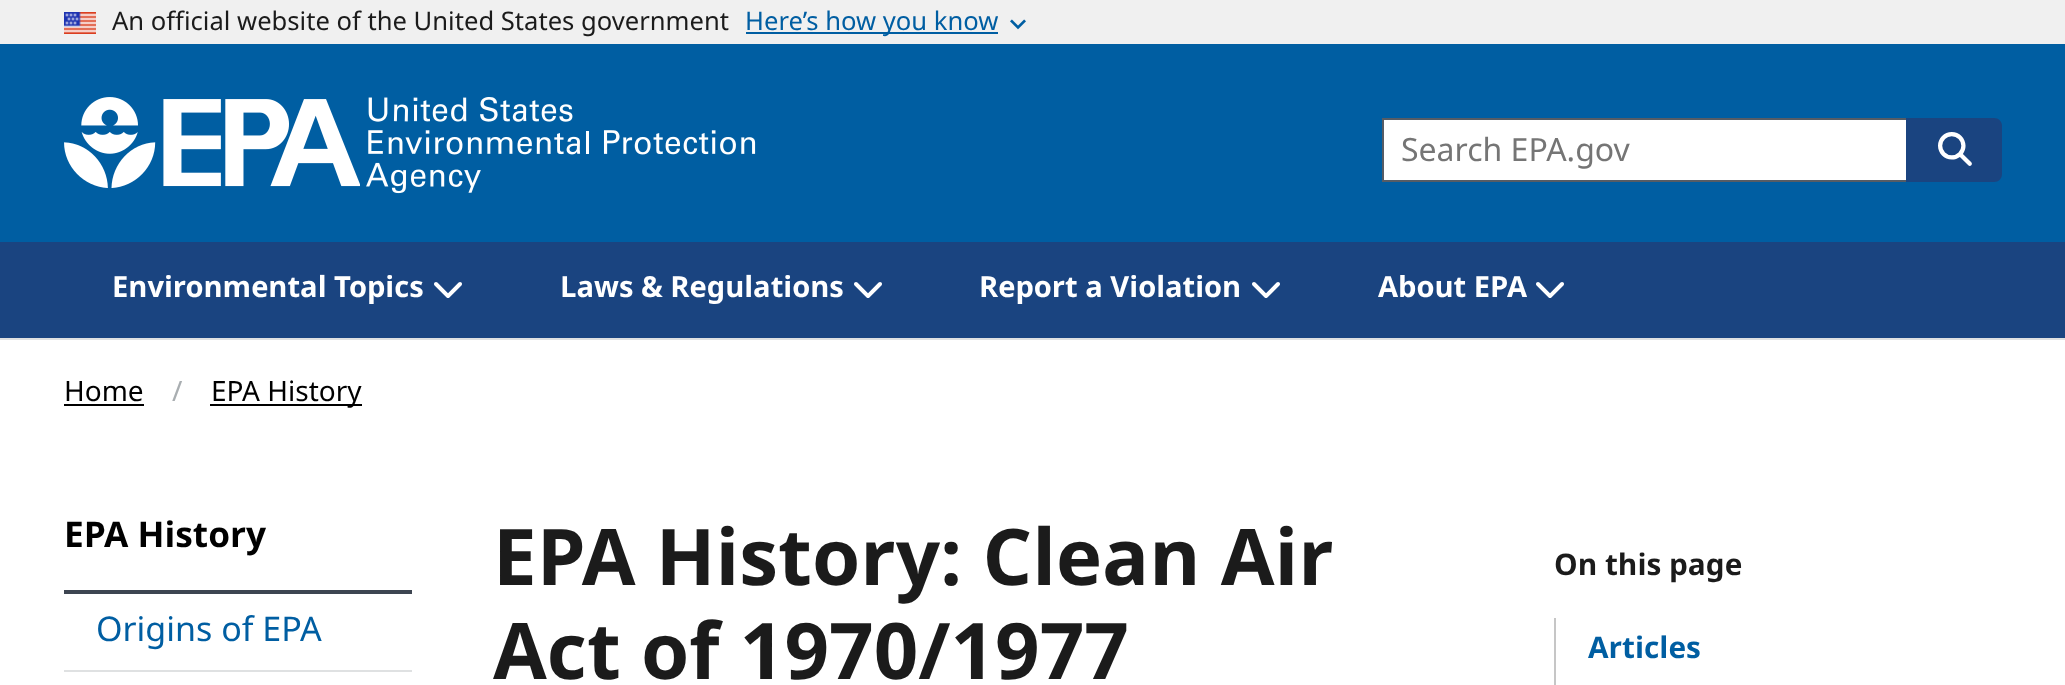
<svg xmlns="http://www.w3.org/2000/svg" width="2065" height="685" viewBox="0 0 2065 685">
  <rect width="100%" height="100%" fill="#fff"/>
  <path d="M0 0h2065v44H0z" fill="#f0f0f0"/>
  <image x="64" y="12" width="32" height="22" href="img/1.png"/>
  <path d="M746 32h252v2H746z" fill="#005ea2"/>
  <image x="1010" y="19" width="16" height="11" href="img/2.png"/>
  <path d="M0 44h2065v198H0z" fill="#005ea2"/>
  <image x="64" y="97" width="296" height="91" href="img/3.png"/>
  <image x="366" y="97" width="390" height="97" href="img/4.png"/>
  <path d="M1384 120h522v60H1384z" fill="#fff"/>
  <path d="M1382 118h524v2H1382z" fill="#565c65"/>
  <path d="M1382 180h524v2H1382z" fill="#565c65"/>
  <path d="M1382 118h2v64H1382z" fill="#565c65"/>
  <path d="M1906 118H1994C1998.5 118 2002 121.5 2002 126V174C2002 178.5 1998.5 182 1994 182H1906Z" fill="#1a4480"/>
  <image x="1938" y="132" width="34" height="34" href="img/5.png"/>
  <path d="M0 242h2065v96H0z" fill="#1a4480"/>
  <image x="434" y="282" width="28" height="16" href="img/6.png"/>
  <image x="854" y="282" width="28" height="16" href="img/6.png"/>
  <image x="1252" y="282" width="28" height="16" href="img/7.png"/>
  <image x="1536" y="282" width="28" height="16" href="img/6.png"/>
  <path d="M0 338h2065v2H0z" fill="#dfe1e2"/>
  <path d="M64 404h80v2H64z" fill="#000"/>
  <path d="M210 404h152v2H210z" fill="#000"/>
  <path d="M64 590h348v4H64z" fill="#3d4551"/>
  <path d="M64 670h348v2H64z" fill="#dfe1e2"/>
  <path d="M1554 618h2v67H1554z" fill="#c6c6c6"/>
  <text x="112" y="30" font-family="Noto Sans Arabic" font-size="25.6" fill="#1b1b1b">An official website of the United States government</text>
  <text x="745" y="30" font-family="Noto Sans Arabic" font-size="25.6" fill="#005ea2">Here’s how you know</text>
  <text x="1401" y="161" font-family="Noto Sans Arabic" font-size="32" fill="#757575">Search EPA.gov</text>
  <g font-family="Noto Sans Arabic" font-size="29.1" font-weight="bold" fill="#fff">
    <text x="112" y="297">Environmental Topics</text>
    <text x="560" y="297">Laws &amp; Regulations</text>
    <text x="979" y="297">Report a Violation</text>
    <text x="1378" y="297">About EPA</text>
  </g>
  <text x="64" y="401" font-family="Noto Sans Arabic" font-size="28" fill="#000">Home</text>
  <text x="172" y="401" font-family="Noto Sans Arabic" font-size="28" fill="#a9aeb1">/</text>
  <text x="211" y="401" font-family="Noto Sans Arabic" font-size="28" fill="#000">EPA History</text>
  <text x="64" y="547" font-family="Noto Sans Arabic" font-size="35.25" font-weight="bold" fill="#000">EPA History</text>
  <text x="96" y="641" font-family="Noto Sans Arabic" font-size="34" fill="#005ea2">Origins of EPA</text>
  <g font-family="Noto Sans Arabic" font-size="78" font-weight="bold" fill="#1b1b1b">
    <text x="493" y="585">EPA History: Clean Air</text>
    <text x="493" y="679">Act of 1970/1977</text>
  </g>
  <text x="1554" y="575" font-family="Noto Sans Arabic" font-size="29.75" font-weight="bold" fill="#1b1b1b">On this page</text>
  <text x="1588" y="658" font-family="Noto Sans Arabic" font-size="29.75" font-weight="bold" fill="#005ea2">Articles</text>
</svg>
